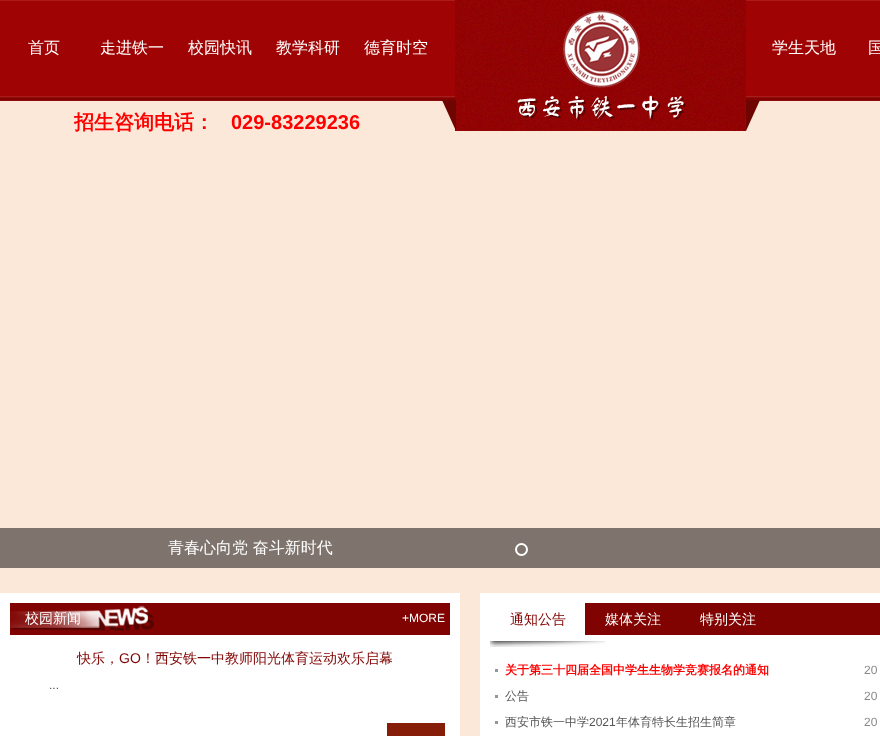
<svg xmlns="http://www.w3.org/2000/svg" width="880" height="736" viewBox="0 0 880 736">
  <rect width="100%" height="100%" fill="#fbe8d9"/>
  <image x="0" y="0" width="880" height="101" href="img/1.png"/>
  <image x="442" y="0" width="318" height="131" href="img/2.png"/>
  <image x="517" y="10" width="169" height="111" href="img/3.png"/>
  <path d="M0 528h880v40H0z" fill="#7e746d"/>
  <circle cx="521.5" cy="549.5" r="5.5" fill="none" stroke="#fff" stroke-width="2"/>
  <path d="M0 593h460v143H0z" fill="#fff"/>
  <path d="M10 603h440v32H10z" fill="#800301"/>
  <image x="10" y="606" width="144" height="25" href="img/4.png"/>
  <path d="M387 723h58v13H387z" fill="#851d09"/>
  <path d="M480 593h400v143H480z" fill="#fff"/>
  <image x="490" y="641" width="115" height="6" href="img/5.png"/>
  <path d="M585 603h295v32H585z" fill="#800301"/>
  <path d="M495 669h3v3H495z" fill="#979797"/>
  <path d="M495 695h3v3H495z" fill="#979797"/>
  <path d="M495 721h3v3H495z" fill="#979797"/>
  <g font-family="WenQuanYi Zen Hei" font-size="16" font-weight="500" fill="#fff">
    <text x="28" y="53">首页</text>
    <text x="100" y="53">走进铁一</text>
    <text x="188" y="53">校园快讯</text>
    <text x="276" y="53">教学科研</text>
    <text x="364" y="53">德育时空</text>
    <text x="772" y="53">学生天地</text>
    <text x="868" y="53">国</text>
  </g>
  <text x="74" y="129" font-family="WenQuanYi Zen Hei" font-size="20" font-weight="bold" fill="#f00">招生咨询电话：</text>
  <text x="231" y="129" font-family="Liberation Sans" font-size="20" font-weight="bold" fill="#f00">029-83229236</text>
  <text x="168" y="553" font-family="WenQuanYi Zen Hei" font-size="16" font-weight="500" fill="#fff">青春心向党 奋斗新时代</text>
  <text x="25" y="623" font-family="WenQuanYi Zen Hei" font-size="14" font-weight="500" fill="#fff">校园新闻</text>
  <text x="402" y="622" font-family="Liberation Sans" font-size="12" fill="#fff">+MORE</text>
  <text x="77" y="663" font-family="WenQuanYi Zen Hei" font-size="14" font-weight="500" fill="#800301">快乐，</text>
  <text x="119" y="663" font-family="Liberation Sans" font-size="14" fill="#800301">GO</text>
  <text x="141" y="663" font-family="WenQuanYi Zen Hei" font-size="14" font-weight="500" fill="#800301">！西安铁一中教师阳光体育运动欢乐启幕</text>
  <text x="49" y="689" font-family="Liberation Sans" font-size="12" fill="#555">...</text>
  <text x="510" y="624" font-family="WenQuanYi Zen Hei" font-size="14" font-weight="500" fill="#800301">通知公告</text>
  <g font-family="WenQuanYi Zen Hei" font-size="14" font-weight="500" fill="#fff">
    <text x="605" y="624">媒体关注</text>
    <text x="700" y="624">特别关注</text>
  </g>
  <text x="505" y="674" font-family="WenQuanYi Zen Hei" font-size="12" font-weight="bold" fill="#f00">关于第三十四届全国中学生生物学竞赛报名的通知</text>
  <text x="864" y="674" font-family="Liberation Sans" font-size="12" fill="#888">20</text>
  <text x="505" y="700" font-family="WenQuanYi Zen Hei" font-size="12" font-weight="500" fill="#555">公告</text>
  <text x="864" y="700" font-family="Liberation Sans" font-size="12" fill="#888">20</text>
  <text x="505" y="726" font-family="WenQuanYi Zen Hei" font-size="12" font-weight="500" fill="#555">西安市铁一中学</text>
  <text x="589" y="726" font-family="Liberation Sans" font-size="12" fill="#555">2021</text>
  <text x="616" y="726" font-family="WenQuanYi Zen Hei" font-size="12" font-weight="500" fill="#555">年体育特长生招生简章</text>
  <text x="864" y="726" font-family="Liberation Sans" font-size="12" fill="#888">20</text>
</svg>
